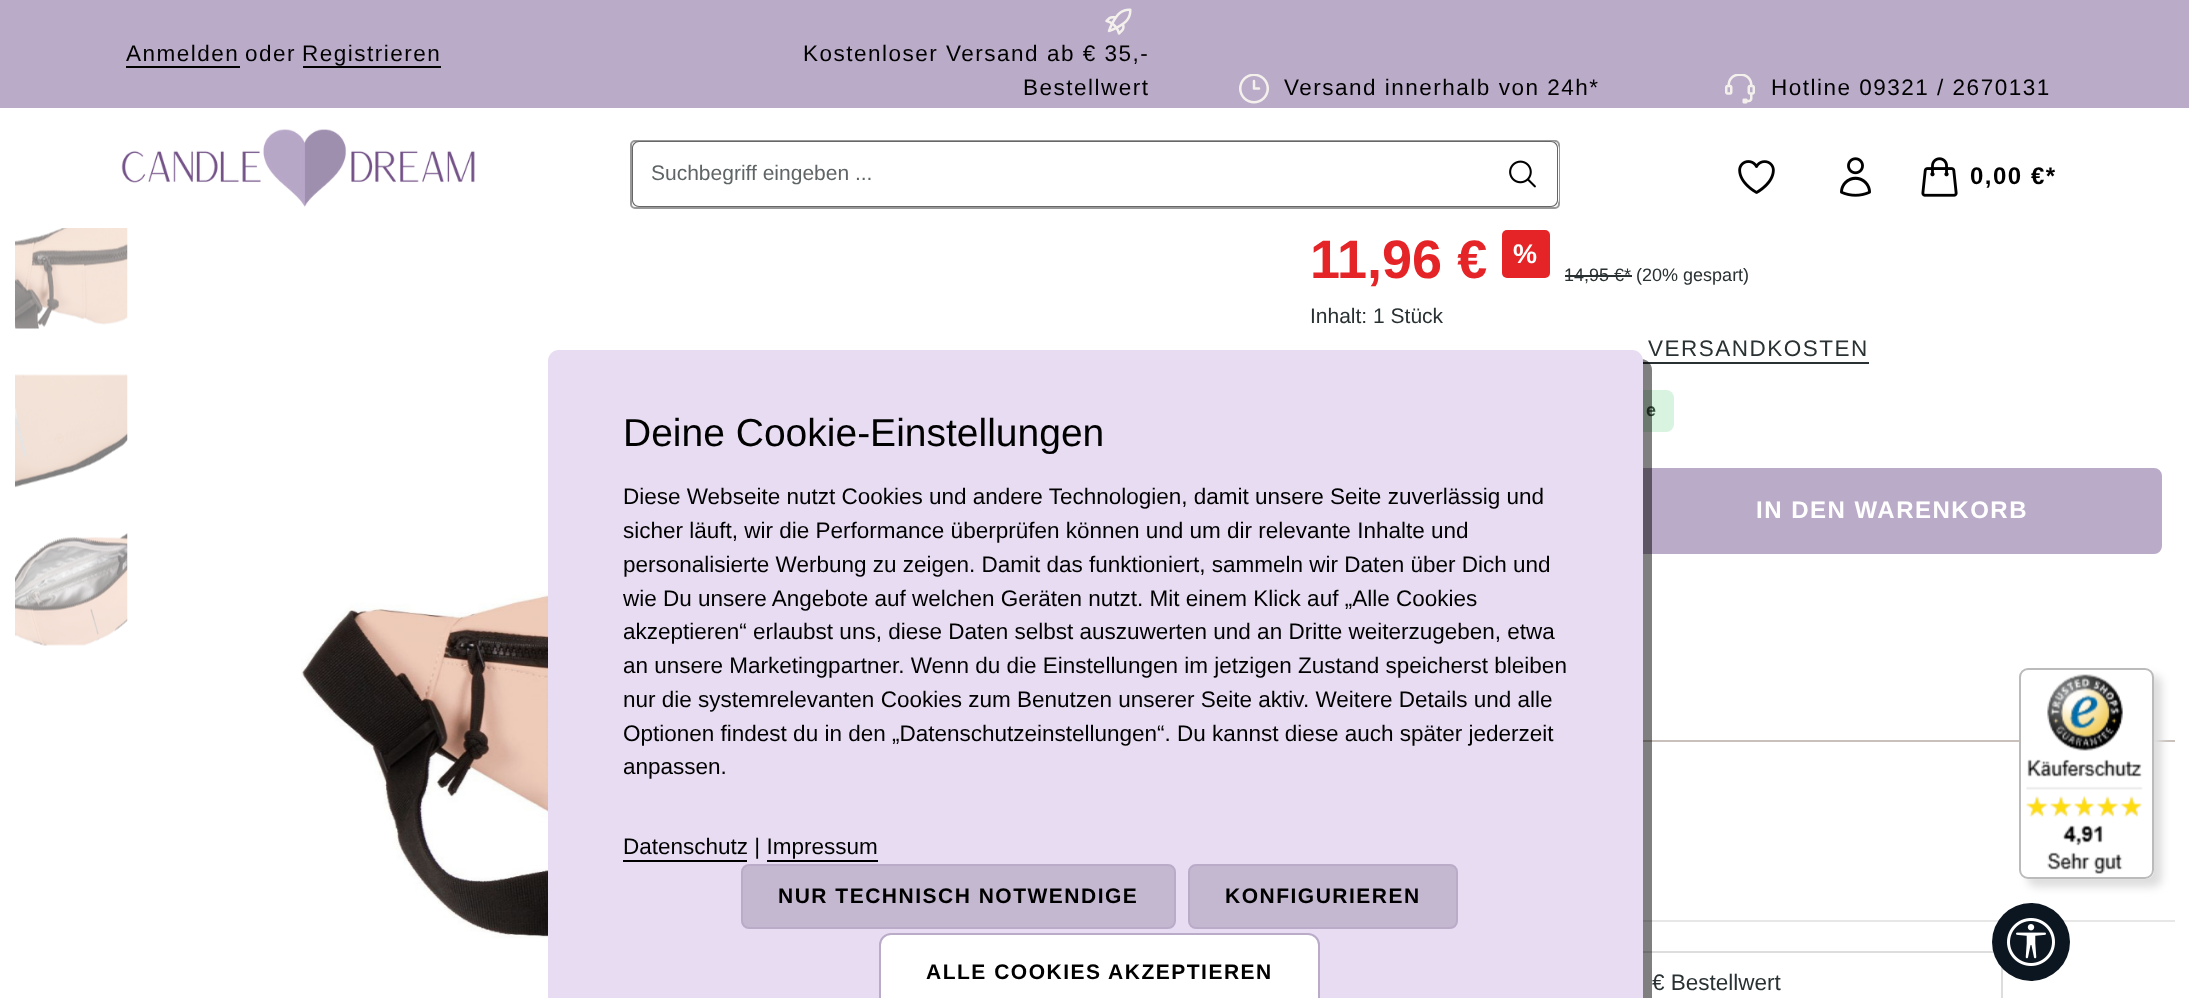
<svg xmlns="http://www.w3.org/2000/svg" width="2189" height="998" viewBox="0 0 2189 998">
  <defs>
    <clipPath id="clip1"><path d="M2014 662H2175V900H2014ZM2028 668H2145C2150 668 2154 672 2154 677V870C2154 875 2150 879 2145 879H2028C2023 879 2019 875 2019 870V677C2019 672 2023 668 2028 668Z" clip-rule="evenodd"/></clipPath>
  </defs>
  <rect width="100%" height="100%" fill="#fff"/>
  <path d="M0 0h2189v108H0z" fill="#baabc9"/>
  <path d="M126 66h114v2H126z" fill="#000"/>
  <path d="M303 66h138v2H303z" fill="#000"/>
  <image x="1105" y="8" width="27" height="27" href="img/1.png"/>
  <image x="1239" y="74" width="30" height="30" href="img/2.png"/>
  <image x="1725" y="74" width="30" height="30" href="img/3.png"/>
  <image x="121" y="129" width="354" height="78" href="img/4.png"/>
  <rect x="631" y="141" width="928" height="67" rx="4" fill="none" stroke="#999" stroke-width="2"/>
  <path d="M639 141H1490V207H639C635 207 632 204 632 200V148C632 144 635 141 639 141ZM639 142H1490V206H639C636 206 633 203 633 200V148C633 145 636 142 639 142Z" fill="#666" fill-rule="evenodd"/>
  <path d="M1488 141H1551C1555.5 141 1559 144.5 1559 149V199C1559 203.5 1555.5 207 1551 207H1488Z" fill="#fff"/>
  <path d="M1488 141H1551C1555 141 1558 144 1558 148V200C1558 204 1555 207 1551 207H1488ZM1488 142H1551C1554 142 1557 145 1557 148V200C1557 203 1554 206 1551 206H1488Z" fill="#666" fill-rule="evenodd"/>
  <image x="1509" y="160" width="27" height="28" href="img/5.png"/>
  <image x="1738" y="160" width="37" height="34" href="img/6.png"/>
  <image x="1840" y="157" width="31" height="40" href="img/7.png"/>
  <image x="1921" y="157" width="37" height="40" href="img/8.png"/>
  <image x="15" y="228" width="113" height="101" href="img/9.png"/>
  <image x="15" y="374" width="113" height="114" href="img/10.png"/>
  <image x="15" y="533" width="113" height="113" href="img/11.png"/>
  <image x="301" y="504" width="247" height="478" href="img/12.png"/>
  <rect x="1502" y="230" width="48" height="48" rx="5" fill="#e52427"/>
  <path d="M1565 275h67v2H1565z" fill="#293133"/>
  <path d="M1643 362h226v2H1643z" fill="#293133"/>
  <rect x="1623" y="469" width="538" height="84" rx="7" fill="#baabc9" stroke="#baabc9" stroke-width="2"/>
  <path d="M1643 740h532v2H1643z" fill="#c9c0bb"/>
  <path d="M1643 920h532v2H1643z" fill="#e8e7e8"/>
  <path d="M1311 952h691v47H1311z" fill="none" stroke="#ddd" stroke-width="2"/>
  <circle cx="2031" cy="942" r="39" fill="#0c1620"/>
  <image x="2007" y="918" width="48" height="48" href="img/13.png"/>
  <g clip-path="url(#clip1)">
    <rect x="2027" y="675" width="135" height="212" rx="9" fill="#ddd" filter="blur(4px)"/>
  </g>
  <image x="2019" y="674" width="135" height="206" href="img/14.png"/>
  <rect x="2020" y="669" width="133" height="209" rx="8" fill="none" stroke="#bbb" stroke-width="2"/>
  <g font-family="Liberation Sans" font-size="22.5" letter-spacing="1.5" fill="#000">
    <text x="126" y="61">Anmelden</text>
    <text x="245" y="61">oder</text>
    <text x="302" y="61">Registrieren</text>
    <text x="803" y="61">Kostenloser Versand ab € 35,-</text>
    <text x="1023" y="95">Bestellwert</text>
    <text x="1284" y="95">Versand innerhalb von 24h*</text>
    <text x="1771" y="95">Hotline 09321 / 2670131</text>
  </g>
  <text x="651" y="180" font-family="Liberation Sans" font-size="21" fill="#5f6566">Suchbegriff eingeben ...</text>
  <text x="1970" y="184" font-family="Liberation Sans" font-size="24" font-weight="bold" letter-spacing="1.5" fill="#000">0,00 €*</text>
  <text x="1310" y="278" font-family="Liberation Sans" font-size="54" font-weight="bold" fill="#e52427">11,96 €</text>
  <text x="1513" y="263" font-family="Liberation Sans" font-size="27" font-weight="bold" fill="#fff">%</text>
  <text x="1564" y="281" font-family="Liberation Sans" font-size="18" fill="#293133">14,95 €* (20% gespart)</text>
  <text x="1310" y="323" font-family="Liberation Sans" font-size="21" fill="#293133">Inhalt: 1 Stück</text>
  <text x="1648" y="356" font-family="Liberation Sans" font-size="22.5" letter-spacing="1.5" fill="#293133">VERSANDKOSTEN</text>
  <text x="1646" y="416" font-family="Liberation Sans" font-size="18" font-weight="bold" fill="#333">e</text>
  <rect x="1310" y="390" width="364" height="42" rx="8" fill="#3cc26133"/>
  <text x="1756" y="518" font-family="Liberation Sans" font-size="24" font-weight="bold" letter-spacing="1.5" fill="#fff">IN DEN WARENKORB</text>
  <text x="1652" y="990" font-family="Liberation Sans" font-size="22.5" fill="#293133">€ Bestellwert</text>
  <path d="M557 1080C558 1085 563 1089 568 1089H1641C1647 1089 1652 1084 1652 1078V370C1652 364 1648 360 1642 359V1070C1642 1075 1638 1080 1632 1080Z" fill="#00000080"/>
  <rect x="548" y="350" width="1095" height="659" rx="11" fill="#e7dcf2"/>
  <text x="623" y="446" font-family="Liberation Sans" font-size="39" fill="#000">Deine Cookie-Einstellungen</text>
  <g font-family="Liberation Sans" font-size="22.5" fill="#000">
    <text x="623" y="504">Diese Webseite nutzt Cookies und andere Technologien, damit unsere Seite zuverlässig und</text>
    <text x="623" y="538">sicher läuft, wir die Performance überprüfen können und um dir relevante Inhalte und</text>
    <text x="623" y="572">personalisierte Werbung zu zeigen. Damit das funktioniert, sammeln wir Daten über Dich und</text>
    <text x="623" y="606">wie Du unsere Angebote auf welchen Geräten nutzt. Mit einem Klick auf „Alle Cookies</text>
    <text x="623" y="639">akzeptieren“ erlaubst uns, diese Daten selbst auszuwerten und an Dritte weiterzugeben, etwa</text>
    <text x="623" y="673">an unsere Marketingpartner. Wenn du die Einstellungen im jetzigen Zustand speicherst bleiben</text>
    <text x="623" y="707">nur die systemrelevanten Cookies zum Benutzen unserer Seite aktiv. Weitere Details und alle</text>
    <text x="623" y="741">Optionen findest du in den „Datenschutzeinstellungen“. Du kannst diese auch später jederzeit</text>
    <text x="623" y="774">anpassen.</text>
    <text x="623" y="854">Datenschutz | Impressum</text>
  </g>
  <path d="M623 860h124v2H623z" fill="#000"/>
  <path d="M767 860h111v2H767z" fill="#000"/>
  <rect x="742" y="865" width="433" height="63" rx="7" fill="#c4b8d1" stroke="#baabc9" stroke-width="2"/>
  <text x="778" y="903" font-family="Liberation Sans" font-size="21" font-weight="bold" letter-spacing="1.5" fill="#000">NUR TECHNISCH NOTWENDIGE</text>
  <rect x="1189" y="865" width="268" height="63" rx="7" fill="#c4b8d1" stroke="#baabc9" stroke-width="2"/>
  <text x="1225" y="903" font-family="Liberation Sans" font-size="21" font-weight="bold" letter-spacing="1.5" fill="#000">KONFIGURIEREN</text>
  <rect x="880" y="934" width="439" height="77" rx="11" fill="#fff" stroke="#baabc9" stroke-width="2"/>
  <text x="926" y="979" font-family="Liberation Sans" font-size="21" font-weight="bold" letter-spacing="1.5" fill="#000">ALLE COOKIES AKZEPTIEREN</text>
</svg>
